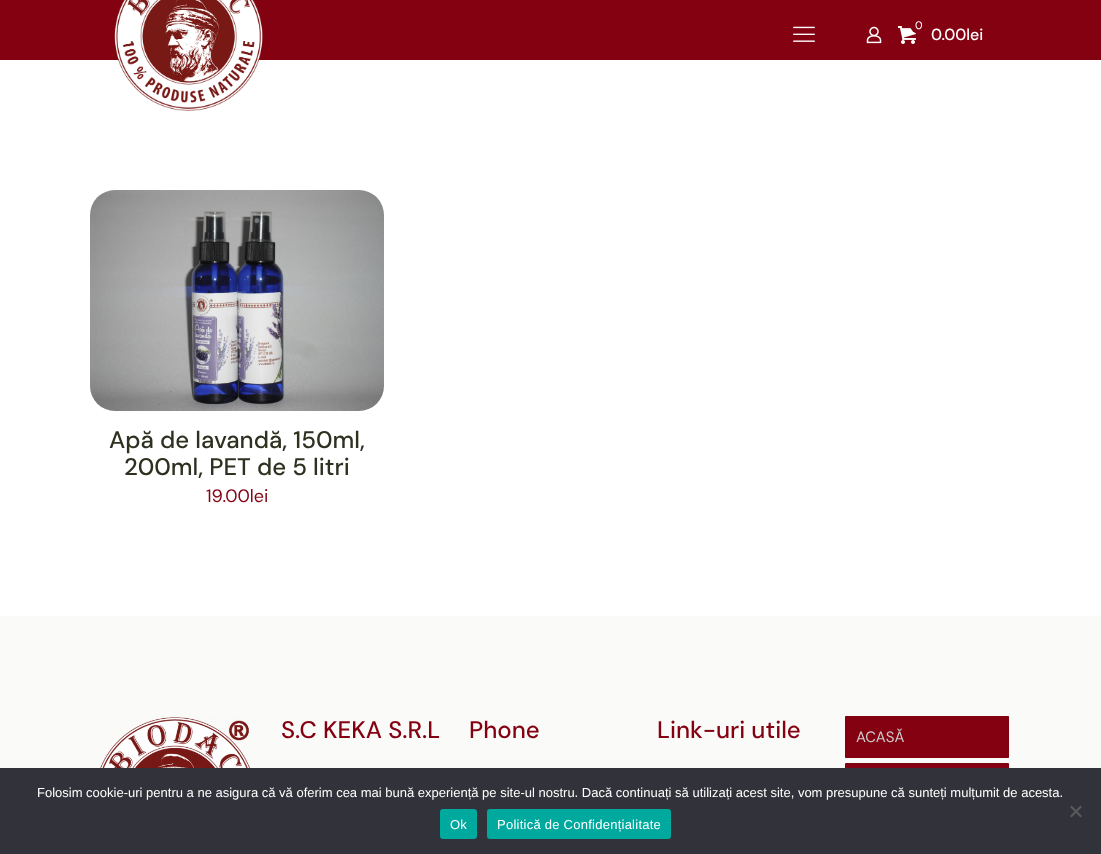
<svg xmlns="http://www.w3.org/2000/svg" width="1101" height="854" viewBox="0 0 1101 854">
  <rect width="100%" height="100%" fill="#fff"/>
  <path d="M0 0h1101v60H0z" fill="#840111"/>
  <image x="114" y="0" width="149" height="111" href="img/1.png"/>
  <image x="793" y="26" width="22" height="16" href="img/2.png"/>
  <image x="866" y="26" width="16" height="18" href="img/3.png"/>
  <image x="898" y="26" width="18" height="18" href="img/4.png"/>
  <circle cx="919" cy="25" r="9" fill="#840111"/>
  <image x="90" y="190" width="294" height="221" href="img/5.png"/>
  <path d="M0 616h1101v152H0z" fill="#fafaf9"/>
  <image x="100" y="717" width="150" height="51" href="img/6.png"/>
  <path d="M845.5 716.5h163v41H845.5z" fill="#840111" stroke="#7f0110"/>
  <path d="M846 764h162v4H846z" fill="#840111"/>
  <path d="M845.5 763.5h163v41H845.5z" fill="none" stroke="#7f0110"/>
  <path d="M0 768h1101v86H0z" fill="#32323a"/>
  <path d="M1080.5 805.5L1082 807L1071.5 817.5L1070 816Z" fill="#59595d"/>
  <path d="M1070 807L1071.5 805.5L1082 816L1080.5 817.5Z" fill="#59595d"/>
  <rect x="440" y="809" width="37" height="30" rx="3" fill="#00a99d"/>
  <rect x="487" y="809" width="184" height="30" rx="3" fill="#00a99d"/>
  <text x="915" y="29" font-family="DM Sans" font-size="11" fill="#fff">0</text>
  <text x="931" y="40" font-family="DM Sans" font-size="16" font-weight="500" fill="#fff">0.00lei</text>
  <g font-family="DM Sans" font-size="24" font-weight="500" fill="#2e3020">
    <text x="109" y="448">Apă de lavandă, 150ml,</text>
    <text x="124" y="475">200ml, PET de 5 litri</text>
  </g>
  <text x="206" y="502" font-family="DM Sans" font-size="18" fill="#840111">19.00lei</text>
  <g font-family="DM Sans" font-size="24" font-weight="500" fill="#840111">
    <text x="281" y="738">S.C KEKA S.R.L</text>
    <text x="469" y="738">Phone</text>
    <text x="657" y="738">Link-uri utile</text>
  </g>
  <text x="856" y="742" font-family="DM Sans" font-size="15" fill="#ccc">ACASĂ</text>
  <text x="37" y="797" font-family="Liberation Sans" font-size="13" fill="#fff">Folosim cookie-uri pentru a ne asigura că vă oferim cea mai bună experiență pe site-ul nostru. Dacă continuați să utilizați acest site, vom presupune că sunteți mulțumit de acesta.</text>
  <g font-family="Liberation Sans" font-size="13" letter-spacing="0.25" fill="#fff">
    <text x="450" y="829">Ok</text>
    <text x="497" y="829">Politică de Confidențialitate</text>
  </g>
</svg>
